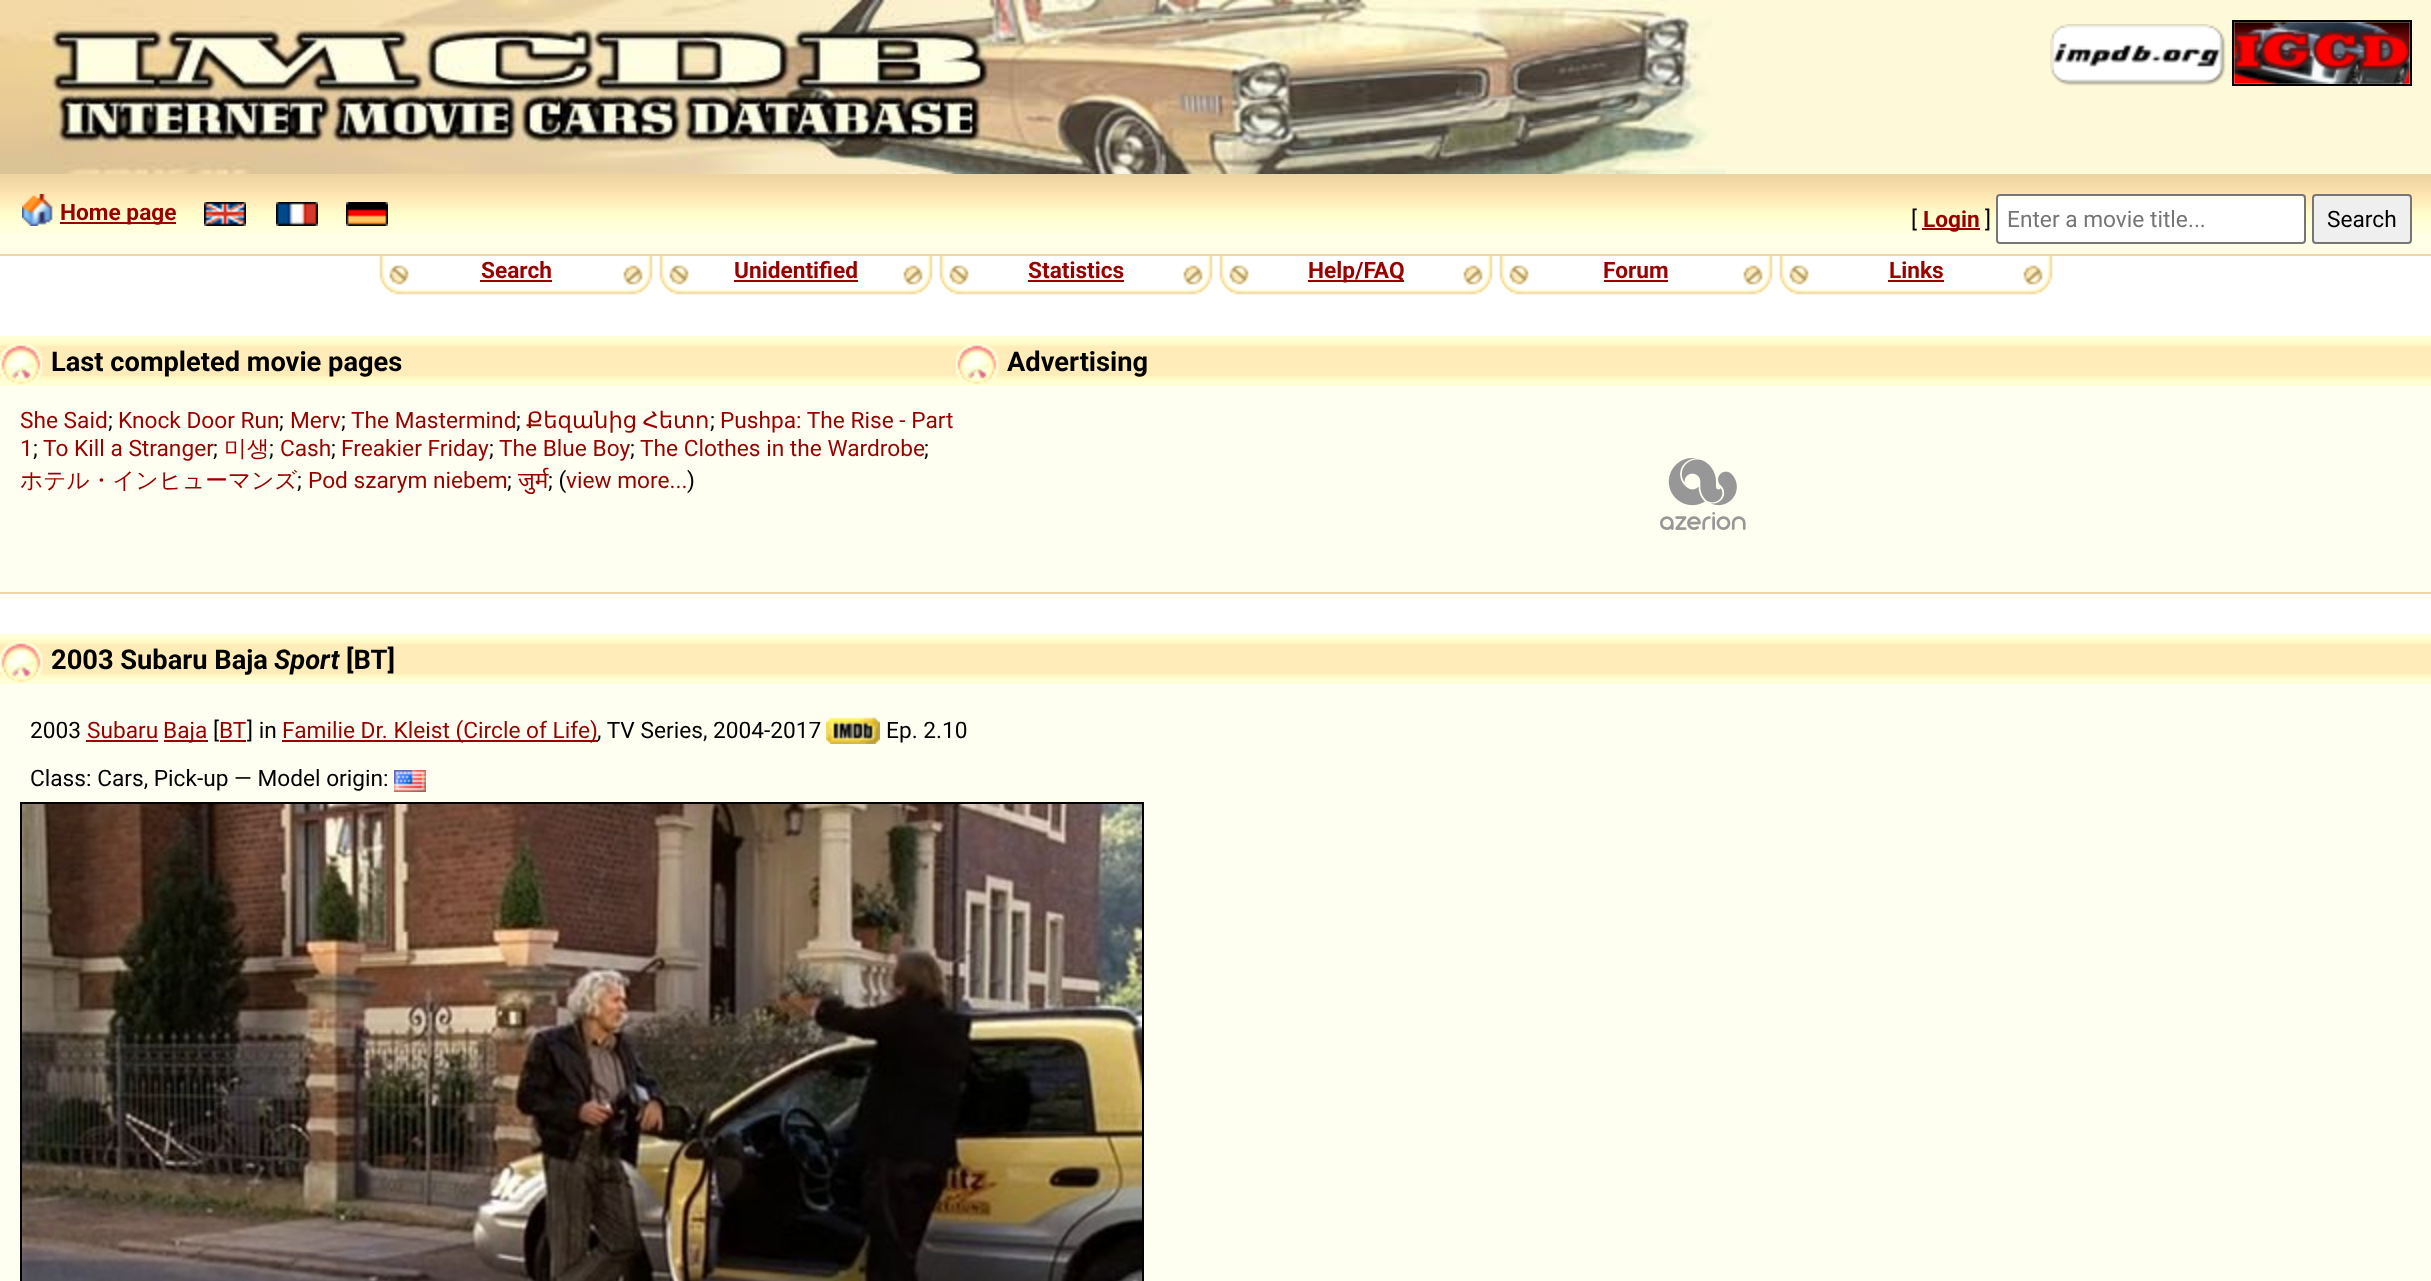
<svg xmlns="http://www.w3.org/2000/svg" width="2431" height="1281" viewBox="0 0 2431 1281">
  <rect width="100%" height="100%" fill="#fff"/>
  <path d="M1726 0h705v174H1726z" fill="#fef9d9"/>
  <image x="0" y="0" width="1726" height="174" href="img/1.png"/>
  <image x="2234" y="22" width="176" height="62" href="img/3.png"/>
  <path d="M2233 21h178v64H2233z" fill="none" stroke="#000" stroke-width="2"/>
  <image x="2050" y="24" width="176" height="62" href="img/2.png"/>
  <path d="M0 235h2431v19H0z" fill="#ffffe7"/>
  <image x="0" y="174" width="2431" height="61" href="img/4.png"/>
  <path d="M0 254h2431v2H0z" fill="#efd6a3"/>
  <image x="22" y="194" width="31" height="32" href="img/5.png"/>
  <path d="M60 222h116v2H60z" fill="#900"/>
  <image x="204" y="202" width="42" height="24" href="img/6.png"/>
  <image x="276" y="202" width="42" height="24" href="img/7.png"/>
  <image x="346" y="202" width="42" height="24" href="img/8.png"/>
  <path d="M1922 228h58v2H1922z" fill="#900"/>
  <rect x="1997" y="195" width="308" height="48" rx="3" fill="#fff" stroke="#767676" stroke-width="2"/>
  <rect x="2313" y="195" width="98" height="48" rx="3" fill="#efefef" stroke="#767676" stroke-width="2"/>
  <image x="379" y="256" width="274" height="39" href="img/9.png"/>
  <path d="M480 280h72v2H480z" fill="#900"/>
  <image x="659" y="256" width="274" height="39" href="img/9.png"/>
  <path d="M734 280h124v2H734z" fill="#900"/>
  <image x="939" y="256" width="274" height="39" href="img/9.png"/>
  <path d="M1028 280h96v2H1028z" fill="#900"/>
  <image x="1219" y="256" width="274" height="39" href="img/9.png"/>
  <path d="M1308 280h96v2H1308z" fill="#900"/>
  <image x="1499" y="256" width="274" height="39" href="img/9.png"/>
  <path d="M1604 280h64v2H1604z" fill="#900"/>
  <image x="1779" y="256" width="274" height="39" href="img/9.png"/>
  <path d="M1888 280h56v2H1888z" fill="#900"/>
  <path d="M0 386h2431v206H0z" fill="#fffff1"/>
  <path d="M0 592h2431v2H0z" fill="#efd6a3"/>
  <path d="M0 336h2431v50H0z" fill="#ffffd7"/>
  <image x="0" y="340" width="956" height="42" href="img/10.png"/>
  <image x="0" y="343" width="43" height="42" href="img/11.png"/>
  <image x="956" y="340" width="1475" height="42" href="img/12.png"/>
  <image x="956" y="343" width="43" height="42" href="img/11.png"/>
  <image x="1660" y="458" width="86" height="72" href="img/13.png"/>
  <path d="M0 684h2431v597H0z" fill="#fffff1"/>
  <path d="M0 634h2431v50H0z" fill="#ffffd7"/>
  <image x="0" y="638" width="2431" height="42" href="img/14.png"/>
  <image x="0" y="641" width="43" height="42" href="img/11.png"/>
  <path d="M86 740h72v2H86z" fill="#900"/>
  <path d="M164 740h44v2H164z" fill="#900"/>
  <path d="M220 740h26v2H220z" fill="#900"/>
  <path d="M282 740h316v2H282z" fill="#900"/>
  <image x="826" y="717" width="54" height="27" href="img/15.png"/>
  <image x="394" y="770" width="32" height="22" href="img/16.png"/>
  <path d="M21 803h1122v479H21z" fill="none" stroke="#000" stroke-width="2"/>
  <image x="22" y="804" width="1120" height="477" href="img/17.png"/>
  <text x="60" y="220" font-family="Roboto" font-size="22.7" font-weight="bold" fill="#900">Home page</text>
  <text x="1911" y="227" font-family="Roboto" font-size="22.7" fill="#000">[</text>
  <text x="1923" y="227" font-family="Roboto" font-size="22.7" font-weight="bold" fill="#900">Login</text>
  <text x="1985" y="227" font-family="Roboto" font-size="22.7" fill="#000">]</text>
  <text x="2007" y="227" font-family="Roboto" font-size="22.7" fill="#757575">Enter a movie title...</text>
  <text x="2327" y="227" font-family="Roboto" font-size="22.7" fill="#000">Search</text>
  <g font-family="Roboto" font-size="22.7" font-weight="bold" fill="#900">
    <text x="481" y="278">Search</text>
    <text x="734" y="278">Unidentified</text>
    <text x="1028" y="278">Statistics</text>
    <text x="1308" y="278">Help/FAQ</text>
    <text x="1603" y="278">Forum</text>
    <text x="1889" y="278">Links</text>
  </g>
  <text x="51" y="371" font-family="Roboto" font-size="27.25" font-weight="bold" fill="#000">Last completed movie pages</text>
  <text x="20" y="428" font-family="Roboto" font-size="22.7" fill="#900">She Said</text>
  <text x="108" y="428" font-family="Roboto" font-size="22.7" fill="#000">;</text>
  <text x="118" y="428" font-family="Roboto" font-size="22.7" fill="#900">Knock Door Run</text>
  <text x="279" y="428" font-family="Roboto" font-size="22.7" fill="#000">;</text>
  <text x="290" y="428" font-family="Roboto" font-size="22.7" fill="#900">Merv</text>
  <text x="341" y="428" font-family="Roboto" font-size="22.7" fill="#000">;</text>
  <text x="351" y="428" font-family="Roboto" font-size="22.7" fill="#900">The Mastermind</text>
  <text x="516" y="428" font-family="Roboto" font-size="22.7" fill="#000">;</text>
  <text x="526" y="428" word-spacing="-2" font-family="DejaVu Sans" font-size="22.7" fill="#900">Քեզանից Հետո</text>
  <text x="710" y="428" font-family="Roboto" font-size="22.7" fill="#000">;</text>
  <g font-family="Roboto" font-size="22.7" fill="#900">
    <text x="720" y="428">Pushpa: The Rise - Part</text>
    <text x="20" y="456">1</text>
  </g>
  <text x="33" y="456" font-family="Roboto" font-size="22.7" fill="#000">;</text>
  <text x="43" y="456" font-family="Roboto" font-size="22.7" fill="#900">To Kill a Stranger</text>
  <text x="213" y="456" font-family="Roboto" font-size="22.7" fill="#000">;</text>
  <text x="224" y="456" font-family="WenQuanYi Zen Hei" font-size="22.7" font-weight="500" fill="#900">미생</text>
  <text x="269" y="456" font-family="Roboto" font-size="22.7" fill="#000">;</text>
  <text x="280" y="456" font-family="Roboto" font-size="22.7" fill="#900">Cash</text>
  <text x="331" y="456" font-family="Roboto" font-size="22.7" fill="#000">;</text>
  <text x="341" y="456" font-family="Roboto" font-size="22.7" fill="#900">Freakier Friday</text>
  <text x="489" y="456" font-family="Roboto" font-size="22.7" fill="#000">;</text>
  <text x="499" y="456" font-family="Roboto" font-size="22.7" fill="#900">The Blue Boy</text>
  <text x="630" y="456" font-family="Roboto" font-size="22.7" fill="#000">;</text>
  <text x="640" y="456" font-family="Roboto" font-size="22.7" fill="#900">The Clothes in the Wardrobe</text>
  <text x="924" y="456" font-family="Roboto" font-size="22.7" fill="#000">;</text>
  <text x="20" y="488" font-family="WenQuanYi Zen Hei" font-size="22.7" font-weight="500" fill="#900">ホテル・インヒューマンズ</text>
  <text x="297" y="488" font-family="Roboto" font-size="22.7" fill="#000">;</text>
  <g font-family="Roboto" font-size="22.7" fill="#900">
    <text x="308" y="488">Pod szarym niebem</text>
    <text x="566" y="488">view more...</text>
  </g>
  <g font-family="Roboto" font-size="22.7" fill="#000">
    <text x="687" y="488">)</text>
    <text x="507" y="488">;</text>
  </g>
  <text x="518" y="488" font-family="Noto Sans" font-size="22.7" fill="#900">जुर्म</text>
  <text x="548" y="488" font-family="Roboto" font-size="22.7" fill="#000">; (</text>
  <g font-family="Roboto" font-size="27.25" font-weight="bold" fill="#000">
    <text x="1007" y="371">Advertising</text>
    <text x="51" y="669">2003 Subaru Baja</text>
  </g>
  <text x="274" y="669" font-family="Roboto" font-size="27.25" font-weight="bold" font-style="italic" fill="#000">Sport</text>
  <text x="346" y="669" font-family="Roboto" font-size="27.25" font-weight="bold" fill="#000">[BT]</text>
  <text x="30" y="738" font-family="Roboto" font-size="22.7" fill="#000">2003</text>
  <g font-family="Roboto" font-size="22.7" fill="#900">
    <text x="87" y="738">Subaru</text>
    <text x="163" y="738">Baja</text>
  </g>
  <text x="213" y="738" font-family="Roboto" font-size="22.7" fill="#000">[</text>
  <text x="219" y="738" font-family="Roboto" font-size="22.7" fill="#900">BT</text>
  <text x="247" y="738" font-family="Roboto" font-size="22.7" fill="#000">] in</text>
  <text x="282" y="738" font-family="Roboto" font-size="22.7" fill="#900">Familie Dr. Kleist (Circle of Life)</text>
  <g font-family="Roboto" font-size="22.7" fill="#000">
    <text x="597" y="738">, TV Series, 2004-2017</text>
    <text x="886" y="738">Ep. 2.10</text>
    <text x="30" y="786">Class: Cars, Pick-up — Model origin:</text>
  </g>
</svg>
